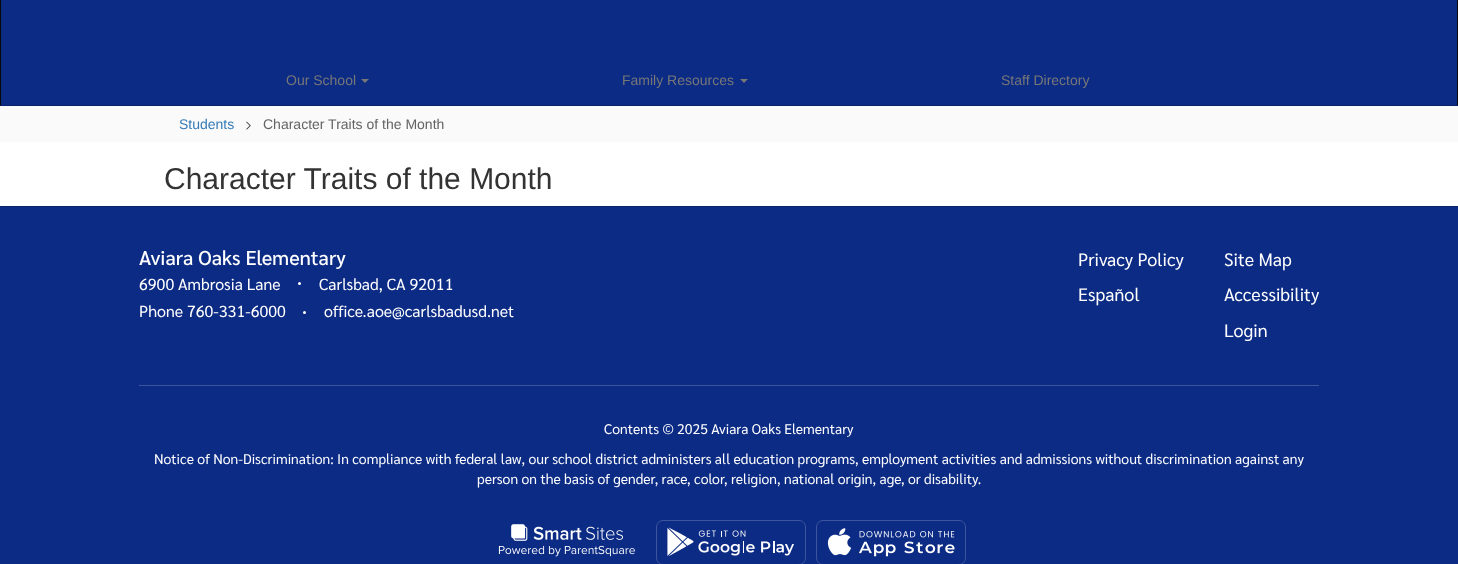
<svg xmlns="http://www.w3.org/2000/svg" width="1458" height="564" viewBox="0 0 1458 564">
  <rect width="100%" height="100%" fill="#fff"/>
  <path d="M0 0h1458v106H0z" fill="#0c2b85"/>
  <path d="M1458-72V106L1457 105V-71Z" fill="#080808"/>
  <path d="M1458 106H0L1 105H1457Z" fill="#00000033"/>
  <path d="M0 106V-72L1-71V105Z" fill="#080808"/>
  <path d="M361 79H369L365 83Z" fill="#777"/>
  <path d="M740 79H748L744 83Z" fill="#777"/>
  <path d="M0 106h1458v36H0z" fill="#fafafa"/>
  <image x="246" y="121" width="5" height="9" href="img/1.png"/>
  <path d="M0 206h1458v1H0z" fill="#0a226a"/>
  <path d="M0 207h1458v357H0z" fill="#0c2b85"/>
  <circle cx="299.5" cy="283.5" r="1.5" fill="#fff"/>
  <circle cx="304.5" cy="312.5" r="1.5" fill="#fff"/>
  <path d="M139 385h1180v1H139z" fill="#3d559d"/>
  <image x="498" y="524" width="137" height="33" href="img/2.png"/>
  <rect x="656.5" y="520.5" width="149" height="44" rx="6.5" fill="none" stroke="#3d559d"/>
  <image x="667" y="527" width="127" height="30" href="img/3.png"/>
  <rect x="816.5" y="520.5" width="149" height="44" rx="6.5" fill="none" stroke="#3d559d"/>
  <image x="827" y="528" width="128" height="29" href="img/4.png"/>
  <g font-family="Liberation Sans" font-size="14" fill="#777">
    <text x="286" y="85">Our School</text>
    <text x="622" y="85">Family Resources</text>
    <text x="1001" y="85">Staff Directory</text>
  </g>
  <text x="179" y="129" font-family="Liberation Sans" font-size="14" fill="#337ab7">Students</text>
  <text x="263" y="129" font-family="Liberation Sans" font-size="14" fill="#636363">Character Traits of the Month</text>
  <text x="164" y="189" font-family="Liberation Sans" font-size="30" fill="#333">Character Traits of the Month</text>
  <text x="139" y="265" font-family="Sarabun" font-size="20" font-weight="500" fill="#fff">Aviara Oaks Elementary</text>
  <g font-family="Sarabun" font-size="16" fill="#fff">
    <text x="139" y="290">6900 Ambrosia Lane</text>
    <text x="319" y="290">Carlsbad, CA 92011</text>
    <text x="139" y="317">Phone 760-331-6000</text>
    <text x="324" y="317">office.aoe@carlsbadusd.net</text>
  </g>
  <g font-family="Sarabun" font-size="18" fill="#fff">
    <text x="1078" y="266">Privacy Policy</text>
    <text x="1078" y="301">Español</text>
    <text x="1224" y="266">Site Map</text>
    <text x="1224" y="301">Accessibility</text>
    <text x="1224" y="337">Login</text>
  </g>
  <g font-family="Sarabun" font-size="14" fill="#fff">
    <text x="604" y="434">Contents © 2025 Aviara Oaks Elementary</text>
    <text x="154" y="464">Notice of Non-Discrimination: In compliance with federal law, our school district administers all education programs, employment activities and admissions without discrimination against any</text>
    <text x="477" y="484">person on the basis of gender, race, color, religion, national origin, age, or disability.</text>
  </g>
</svg>
